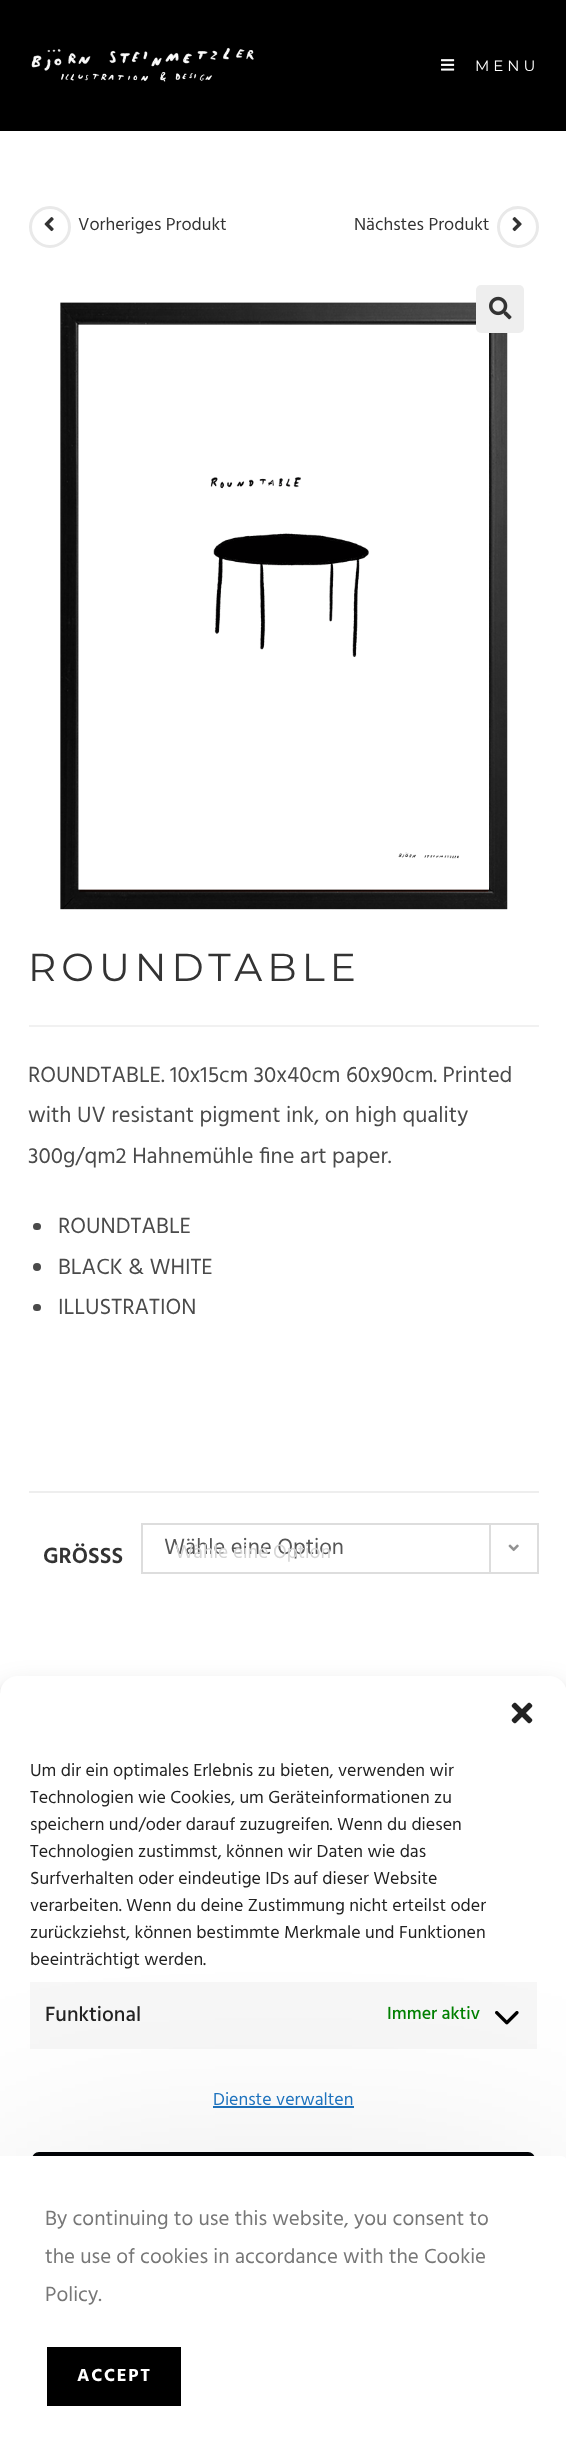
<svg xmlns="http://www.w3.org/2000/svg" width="566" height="2452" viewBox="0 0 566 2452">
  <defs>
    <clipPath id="clip1"><path d="M176 1536h310v35H176z"/></clipPath>
  </defs>
  <rect width="100%" height="100%" fill="#fff"/>
  <path d="M0 0h566v131H0z" fill="#000"/>
  <image x="31" y="47" width="223" height="35" href="img/1.png"/>
  <image x="441" y="59" width="14" height="12" href="img/2.png"/>
  <circle cx="50" cy="227" r="19.5" fill="none" stroke="#e9e9e9" stroke-width="3"/>
  <image x="44" y="217" width="10" height="15" href="img/3.png"/>
  <circle cx="518" cy="227" r="19.5" fill="none" stroke="#e9e9e9" stroke-width="3"/>
  <image x="512" y="217" width="10" height="15" href="img/4.png"/>
  <image x="60" y="302" width="448" height="608" href="img/6.png"/>
  <rect x="476" y="285" width="48" height="48" rx="5" fill="#eee"/>
  <image x="489" y="296" width="23" height="24" href="img/5.png"/>
  <path d="M29 1025h510v2H29z" fill="#f1f1f1"/>
  <rect x="33" y="1223" width="8" height="7" rx="3.5" fill="#4a4a4a"/>
  <circle cx="37" cy="1267" r="4" fill="#4a4a4a"/>
  <rect x="33" y="1304" width="8" height="7" rx="3.5" fill="#4a4a4a"/>
  <path d="M29 1491h510v2H29z" fill="#eee"/>
  <path d="M142 1524h396v49H142z" fill="none" stroke="#ddd" stroke-width="2"/>
  <path d="M489 1524h2v48H489z" fill="#ddd"/>
  <image x="508" y="1544" width="11" height="8" href="img/7.png"/>
  <rect y="1685" width="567" height="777" rx="18" fill="#0000003b" filter="blur(4.5px)"/>
  <rect y="1691" width="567" height="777" rx="18" fill="#00000030" filter="blur(15px)"/>
  <rect y="1676" width="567" height="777" rx="18" fill="#fff"/>
  <image x="511" y="1702" width="22" height="22" href="img/8.png"/>
  <path d="M30 1982h507v67H30z" fill="#f7f7f7"/>
  <image x="495" y="2011" width="24" height="14" href="img/9.png"/>
  <path d="M213 2106h141v2H213z" fill="#1e73be"/>
  <rect x="31" y="2151" width="505" height="65" rx="8" fill="#000306" stroke="#feffff" stroke-width="2"/>
  <rect y="2186" width="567" height="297" rx="6" fill="#0000001a" filter="blur(112.5px)"/>
  <path d="M0 2156H561C564.5 2156 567 2158.5 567 2162V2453H0Z" fill="#fff"/>
  <path d="M47 2347h134v59H47z" fill="#000"/>
  <text x="475" y="71" font-family="Montserrat" font-size="15" letter-spacing="4" fill="#fff">MENU</text>
  <g font-family="Hind" font-size="18" fill="#333">
    <text x="78" y="230">Vorheriges Produkt</text>
    <text x="354" y="230">Nächstes Produkt</text>
  </g>
  <text x="28" y="981" font-family="Montserrat" font-size="39" letter-spacing="5" fill="#333">ROUNDTABLE</text>
  <g font-family="Hind" font-size="22.5" fill="#4a4a4a">
    <text x="28" y="1082">ROUNDTABLE. 10x15cm 30x40cm 60x90cm. Printed</text>
    <text x="28" y="1122">with UV resistant pigment ink, on high quality</text>
    <text x="28" y="1163">300g/qm2 Hahnemühle fine art paper.</text>
    <text x="58" y="1233">ROUNDTABLE</text>
    <text x="58" y="1274">BLACK &amp; WHITE</text>
    <text x="58" y="1314">ILLUSTRATION</text>
  </g>
  <text x="43" y="1563" font-family="Hind" font-size="22.5" font-weight="600" fill="#333">GRÖSSS</text>
  <text x="164" y="1554" font-family="Hind" font-size="22.5" fill="#555">Wähle eine Option</text>
  <g clip-path="url(#clip1)">
    <text x="175" y="1558" font-family="Hind" font-size="19.5" fill="#d6d6d6">Wähle eine Option</text>
  </g>
  <g font-family="Hind" font-size="18" fill="#222">
    <text x="30" y="1776">Um dir ein optimales Erlebnis zu bieten, verwenden wir</text>
    <text x="30" y="1803">Technologien wie Cookies, um Geräteinformationen zu</text>
    <text x="30" y="1830">speichern und/oder darauf zuzugreifen. Wenn du diesen</text>
    <text x="30" y="1857">Technologien zustimmst, können wir Daten wie das</text>
    <text x="30" y="1884">Surfverhalten oder eindeutige IDs auf dieser Website</text>
    <text x="30" y="1911">verarbeiten. Wenn du deine Zustimmung nicht erteilst oder</text>
    <text x="30" y="1938">zurückziehst, können bestimmte Merkmale und Funktionen</text>
    <text x="30" y="1965">beeinträchtigt werden.</text>
  </g>
  <text x="45" y="2021" font-family="Hind" font-size="21" font-weight="500" fill="#222">Funktional</text>
  <text x="387" y="2019" font-family="Hind" font-size="18" font-weight="500" fill="#008000">Immer aktiv</text>
  <text x="213" y="2105" font-family="Hind" font-size="18" fill="#1e73be">Dienste verwalten</text>
  <g font-family="Hind" font-size="21" fill="#777">
    <text x="45" y="2225">By continuing to use this website, you consent to</text>
    <text x="45" y="2263">the use of cookies in accordance with the Cookie</text>
    <text x="45" y="2301">Policy.</text>
  </g>
  <text x="77" y="2381" font-family="Hind" font-size="18" font-weight="bold" letter-spacing="1.75" fill="#fff">ACCEPT</text>
</svg>
